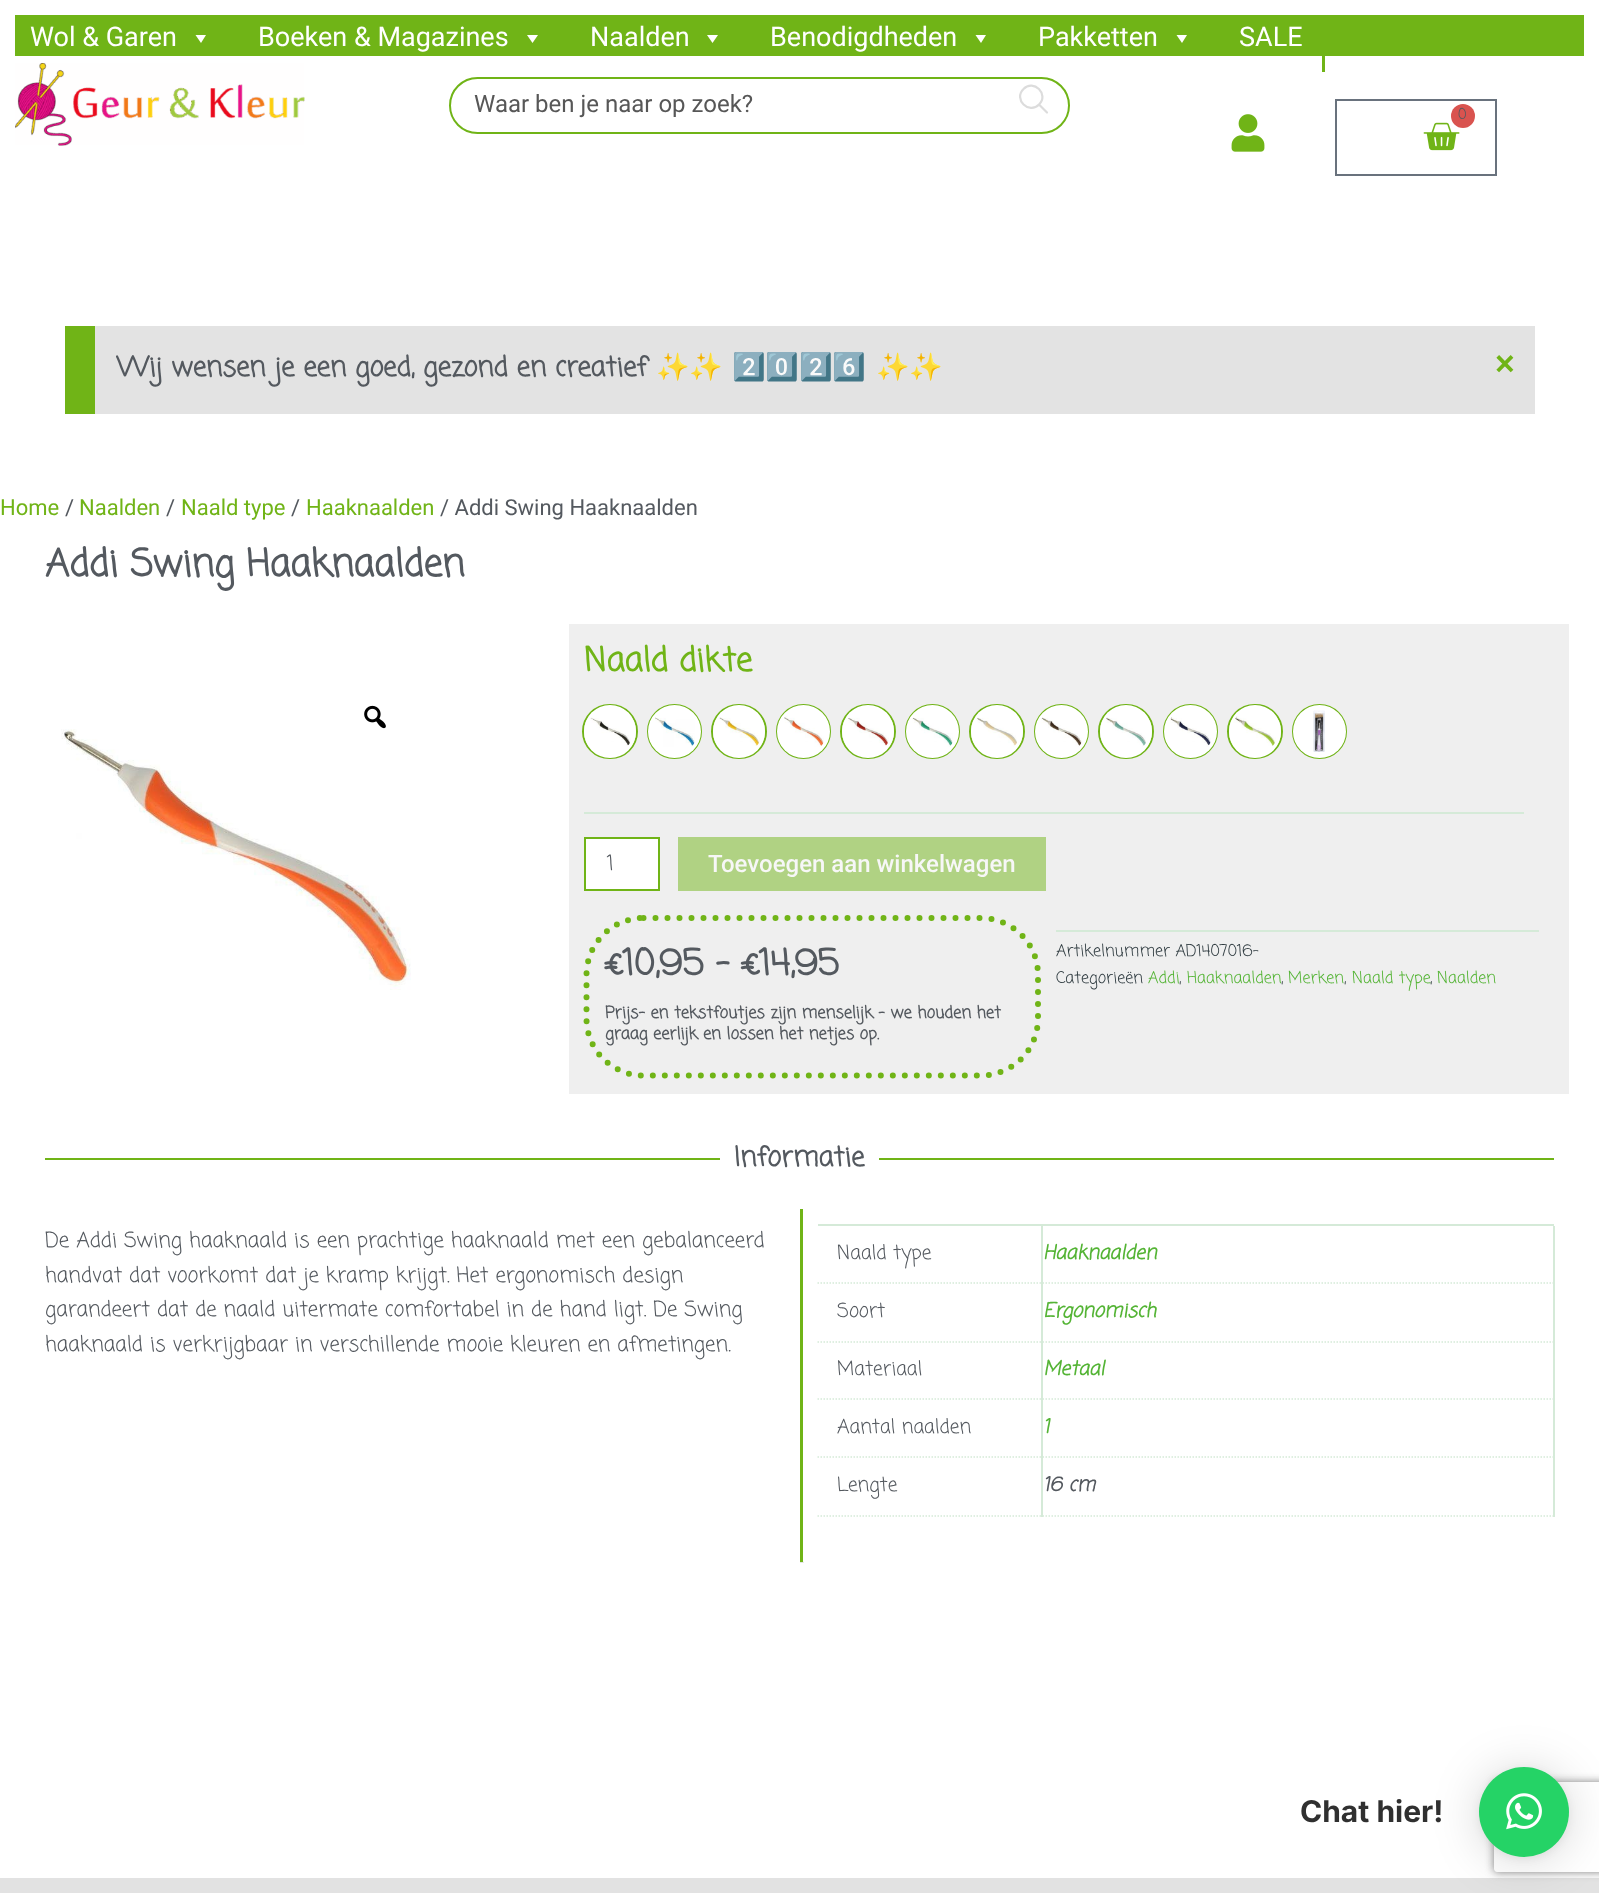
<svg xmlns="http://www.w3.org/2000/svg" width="1599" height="1893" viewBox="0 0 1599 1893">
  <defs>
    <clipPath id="clip1"><path d="M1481 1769H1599V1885H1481ZM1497 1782H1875C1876.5 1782 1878 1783.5 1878 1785V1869C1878 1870.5 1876.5 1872 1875 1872H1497C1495.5 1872 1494 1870.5 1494 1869V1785C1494 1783.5 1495.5 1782 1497 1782Z" clip-rule="evenodd"/></clipPath>
  </defs>
  <rect width="100%" height="100%" fill="#fff"/>
  <path d="M15 15h1569v41H15z" fill="#70b417"/>
  <path d="M206 35L201 43L195.5 35Z" fill="#fff"/>
  <path d="M538 35L532.5 43L527 35Z" fill="#fff"/>
  <path d="M718 35L712.5 43L707 35Z" fill="#fff"/>
  <path d="M986 35L981 43L975.5 35Z" fill="#fff"/>
  <path d="M1187 35L1182 43L1176.5 35Z" fill="#fff"/>
  <image x="15" y="63" width="290" height="83" href="img/1.png"/>
  <rect x="450" y="78" width="619" height="55" rx="27.5" fill="none" stroke="#70b417" stroke-width="2"/>
  <path d="M1047 112.5L1039 104.5M1039 104.5C1049.5 94.5 1033.5 78.5 1023.5 89C1013 99 1029 115 1039 104.5Z" fill="none" stroke="#dcdcdc" stroke-width="2.2" stroke-linecap="round" stroke-linejoin="round"/>
  <path d="M1322 56h3v16H1322z" fill="#70b417"/>
  <image x="1231" y="114" width="34" height="38" href="img/2.png"/>
  <path d="M1336 100h160v75H1336z" fill="none" stroke="#69727d" stroke-width="2"/>
  <image x="1423" y="122" width="37" height="29" href="img/3.png"/>
  <circle cx="1463" cy="116" r="12" fill="#d9534f"/>
  <path d="M95 326h1440v88H95z" fill="#e3e3e3"/>
  <path d="M65 326h30v88H65z" fill="#70b417"/>
  <image x="364" y="705" width="22" height="24" href="img/4.png"/>
  <image x="61" y="729" width="350" height="261" href="img/5.png"/>
  <path d="M569 624h1000v470H569z" fill="#efefef"/>
  <path d="M584 812h940v2H584z" fill="#d5ead8"/>
  <rect x="583" y="705" width="54" height="53" rx="26.5" fill="none" stroke="#70b417" stroke-width="2"/>
  <rect x="584" y="705" width="52" height="53" rx="26" fill="#fff"/>
  <image x="590" y="717" width="41" height="29" href="img/6.png"/>
  <circle cx="674.5" cy="731.5" r="26.5" fill="none" stroke="#70b417" stroke-width="2"/>
  <circle cx="674.5" cy="731.5" r="26.5" fill="#fff"/>
  <image x="655" y="717" width="40" height="30" href="img/7.png"/>
  <rect x="712" y="705" width="54" height="53" rx="26.5" fill="none" stroke="#70b417" stroke-width="2"/>
  <rect x="713" y="705" width="52" height="53" rx="26" fill="#fff"/>
  <image x="719" y="717" width="41" height="29" href="img/8.png"/>
  <circle cx="803.5" cy="731.5" r="26.5" fill="none" stroke="#70b417" stroke-width="2"/>
  <circle cx="803.5" cy="731.5" r="26.5" fill="#fff"/>
  <image x="784" y="716" width="40" height="31" href="img/9.png"/>
  <rect x="841" y="705" width="54" height="53" rx="26.5" fill="none" stroke="#70b417" stroke-width="2"/>
  <rect x="842" y="705" width="52" height="53" rx="26" fill="#fff"/>
  <image x="848" y="717" width="41" height="29" href="img/10.png"/>
  <circle cx="932.5" cy="731.5" r="26.5" fill="none" stroke="#70b417" stroke-width="2"/>
  <circle cx="932.5" cy="731.5" r="26.5" fill="#fff"/>
  <image x="912" y="717" width="41" height="30" href="img/11.png"/>
  <rect x="970" y="705" width="54" height="53" rx="26.5" fill="none" stroke="#70b417" stroke-width="2"/>
  <rect x="971" y="705" width="52" height="53" rx="26" fill="#fff"/>
  <image x="977" y="717" width="40" height="30" href="img/12.png"/>
  <circle cx="1061.5" cy="731.5" r="26.5" fill="none" stroke="#70b417" stroke-width="2"/>
  <circle cx="1061.5" cy="731.5" r="26.5" fill="#fff"/>
  <image x="1041" y="717" width="41" height="30" href="img/13.png"/>
  <rect x="1099" y="705" width="54" height="53" rx="26.5" fill="none" stroke="#70b417" stroke-width="2"/>
  <rect x="1100" y="705" width="52" height="53" rx="26" fill="#fff"/>
  <image x="1106" y="717" width="40" height="30" href="img/14.png"/>
  <circle cx="1190.5" cy="731.5" r="26.5" fill="none" stroke="#70b417" stroke-width="2"/>
  <circle cx="1190.5" cy="731.5" r="26.5" fill="#fff"/>
  <image x="1170" y="717" width="41" height="30" href="img/15.png"/>
  <rect x="1228" y="705" width="54" height="53" rx="26.5" fill="none" stroke="#70b417" stroke-width="2"/>
  <rect x="1229" y="705" width="52" height="53" rx="26" fill="#fff"/>
  <image x="1233" y="716" width="43" height="30" href="img/16.png"/>
  <circle cx="1319.5" cy="731.5" r="26.5" fill="none" stroke="#70b417" stroke-width="2"/>
  <circle cx="1319.5" cy="731.5" r="26.5" fill="#fff"/>
  <image x="1313" y="710" width="12" height="42" href="img/17.png"/>
  <path d="M585 838h74v52H585z" fill="#fff" stroke="#70b417" stroke-width="2"/>
  <path d="M678 837h368v54H678z" fill="#b0d283"/>
  <path d="M643.5 918H981C1012.5 918 1038 943.5 1038 975V1018.5C1038 1050 1012.5 1075.5 981 1075.5H643.5C612 1075.5 586.5 1050 586.5 1018.5V975C586.5 943.5 612 918 643.5 918Z" fill="none" stroke="#70b417" stroke-width="6" stroke-linecap="round" stroke-dasharray="0 12"/>
  <path d="M1056 930h483v2H1056z" fill="#d5ead8"/>
  <path d="M45 1158h675v2H45z" fill="#70b417"/>
  <path d="M879 1158h675v2H879z" fill="#70b417"/>
  <path d="M800 1561h4v2H800z" fill="#e3e3e3"/>
  <path d="M802 1209H1569V1563H804L803 1561L802 1558Z" fill="#fff"/>
  <path d="M800 1209h3v353H800z" fill="#70b417"/>
  <path d="M818 1224h736v2H818z" fill="#d5ead8"/>
  <path d="M1041 1226h2v291H1041z" fill="#d5ead8"/>
  <path d="M817.5 1283H1042.5" fill="none" stroke="#d5ead8" stroke-width="1.5" stroke-dasharray="1.5 1.5"/>
  <path d="M1553 1226h2v291H1553z" fill="#d5ead8"/>
  <path d="M1042.5 1283H1554" fill="none" stroke="#d5ead8" stroke-width="1.5" stroke-dasharray="1.5 1.5"/>
  <path d="M817.5 1342H1042.5" fill="none" stroke="#d5ead8" stroke-width="1.5" stroke-dasharray="1.5 1.5"/>
  <path d="M1042.5 1342H1554" fill="none" stroke="#d5ead8" stroke-width="1.5" stroke-dasharray="1.5 1.5"/>
  <path d="M817.5 1399H1042.5" fill="none" stroke="#d5ead8" stroke-width="1.5" stroke-dasharray="1.5 1.5"/>
  <path d="M1042.5 1399H1554" fill="none" stroke="#d5ead8" stroke-width="1.5" stroke-dasharray="1.5 1.5"/>
  <path d="M817.5 1457H1042.5" fill="none" stroke="#d5ead8" stroke-width="1.5" stroke-dasharray="1.5 1.5"/>
  <path d="M1042.5 1457H1554" fill="none" stroke="#d5ead8" stroke-width="1.5" stroke-dasharray="1.5 1.5"/>
  <path d="M817.5 1516H1042.5" fill="none" stroke="#d5ead8" stroke-width="1.5" stroke-dasharray="1.5 1.5"/>
  <path d="M1042.5 1516H1554" fill="none" stroke="#d5ead8" stroke-width="1.5" stroke-dasharray="1.5 1.5"/>
  <path d="M0 1878h1599v15H0z" fill="#e2e2e2"/>
  <rect x="1479" y="1770" width="90" height="90" rx="45" fill="#00000029" filter="blur(24px)"/>
  <rect x="1479" y="1769" width="90" height="90" rx="45" fill="#0000000f" filter="blur(4.5px)"/>
  <g clip-path="url(#clip1)">
    <rect x="1494" y="1782" width="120" height="90" rx="3" fill="#808080" filter="blur(4px)"/>
  </g>
  <circle cx="1524" cy="1812" r="45" fill="#25d366"/>
  <image x="1506" y="1793" width="36" height="37" href="img/18.png"/>
  <g font-family="Roboto" font-size="27" fill="#fff">
    <text x="30" y="46">Wol &amp; Garen</text>
    <text x="258" y="46">Boeken &amp; Magazines</text>
    <text x="590" y="46">Naalden</text>
    <text x="770" y="46">Benodigdheden</text>
    <text x="1038" y="46">Pakketten</text>
    <text x="1239" y="46">SALE</text>
  </g>
  <text x="474" y="112" font-family="Roboto" font-size="24" fill="#575757">Waar ben je naar op zoek?</text>
  <text x="1458" y="119" font-family="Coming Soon" font-size="15" fill="#54595f">0</text>
  <text x="117" y="376" font-family="Coming Soon" font-size="27" font-weight="bold" fill="#54595f">Wij wensen je een goed, gezond en creatief</text>
  <g font-family="Noto Color Emoji" font-size="27" font-weight="bold" fill="#54595f">
    <text x="656" y="376">✨✨</text>
    <text x="732" y="376">2️⃣0️⃣2️⃣6️⃣</text>
    <text x="876" y="376">✨✨</text>
  </g>
  <text x="1495" y="376" font-family="Roboto" font-size="37.5" font-weight="500" fill="#70b417">×</text>
  <text x="0" y="515" font-family="Roboto" font-size="22" fill="#70b417">Home</text>
  <text x="65" y="515" font-family="Roboto" font-size="22" fill="#54595f">/</text>
  <text x="79" y="515" font-family="Roboto" font-size="22" fill="#70b417">Naalden</text>
  <text x="166" y="515" font-family="Roboto" font-size="22" fill="#54595f">/</text>
  <text x="181" y="515" font-family="Roboto" font-size="22" fill="#70b417">Naald type</text>
  <text x="291" y="515" font-family="Roboto" font-size="22" fill="#54595f">/</text>
  <text x="306" y="515" font-family="Roboto" font-size="22" fill="#70b417">Haaknaalden</text>
  <text x="440" y="515" font-family="Roboto" font-size="22" fill="#54595f">/ Addi Swing Haaknaalden</text>
  <text x="45" y="576" font-family="Coming Soon" font-size="37.5" font-weight="bold" fill="#54595f">Addi Swing Haaknaalden</text>
  <text x="584" y="671" font-family="Coming Soon" font-size="33" font-weight="bold" fill="#70b417">Naald dikte</text>
  <text x="607" y="870" font-family="Coming Soon" font-size="21" fill="#54595f">1</text>
  <text x="708" y="872" font-family="Roboto" font-size="24" font-weight="500" fill="#f7f7f7">Toevoegen aan winkelwagen</text>
  <text x="605" y="975" font-family="Coming Soon" font-size="36" font-weight="bold" fill="#54595f">€10,95 - €14,95</text>
  <g font-family="Coming Soon" font-size="16.5" font-weight="bold" fill="#54595f">
    <text x="605" y="1018">Prijs- en tekstfoutjes zijn menselijk – we houden het</text>
    <text x="605" y="1039">graag eerlijk en lossen het netjes op.</text>
  </g>
  <g font-family="Coming Soon" font-size="16.25" fill="#2f3b40">
    <text x="1056" y="956">Artikelnummer AD1407016-</text>
    <text x="1056" y="983">Categorieën</text>
  </g>
  <text x="1148" y="983" font-family="Coming Soon" font-size="16.25" fill="#54b435">Addi</text>
  <text x="1179" y="983" font-family="Coming Soon" font-size="16.25" fill="#2f3b40">,</text>
  <text x="1187" y="983" font-family="Coming Soon" font-size="16.25" fill="#54b435">Haaknaalden</text>
  <text x="1281" y="983" font-family="Coming Soon" font-size="16.25" fill="#2f3b40">,</text>
  <text x="1288" y="983" font-family="Coming Soon" font-size="16.25" fill="#54b435">Merken</text>
  <text x="1344" y="983" font-family="Coming Soon" font-size="16.25" fill="#2f3b40">,</text>
  <text x="1352" y="983" font-family="Coming Soon" font-size="16.25" fill="#54b435">Naald type</text>
  <text x="1430" y="983" font-family="Coming Soon" font-size="16.25" fill="#2f3b40">,</text>
  <text x="1437" y="983" font-family="Coming Soon" font-size="16.25" fill="#54b435">Naalden</text>
  <text x="734" y="1166" font-family="Coming Soon" font-size="27" font-weight="bold" fill="#54595f">Informatie</text>
  <g font-family="Coming Soon" font-size="21" fill="#54595f">
    <text x="45" y="1247">De Addi Swing haaknaald is een prachtige haaknaald met een gebalanceerd</text>
    <text x="45" y="1282">handvat dat voorkomt dat je kramp krijgt. Het ergonomisch design</text>
    <text x="45" y="1316">garandeert dat de naald uitermate comfortabel in de hand ligt. De Swing</text>
    <text x="45" y="1351">haaknaald is verkrijgbaar in verschillende mooie kleuren en afmetingen.</text>
  </g>
  <text x="837" y="1259" font-family="Coming Soon" font-size="19.5" fill="#54595f">Naald type</text>
  <text x="1043" y="1259" font-family="Coming Soon" font-size="19.5" font-weight="bold" font-style="italic" fill="#54b435">Haaknaalden</text>
  <text x="837" y="1317" font-family="Coming Soon" font-size="19.5" fill="#54595f">Soort</text>
  <text x="1043" y="1317" font-family="Coming Soon" font-size="19.5" font-weight="bold" font-style="italic" fill="#54b435">Ergonomisch</text>
  <text x="837" y="1375" font-family="Coming Soon" font-size="19.5" fill="#54595f">Materiaal</text>
  <text x="1043" y="1375" font-family="Coming Soon" font-size="19.5" font-weight="bold" font-style="italic" fill="#54b435">Metaal</text>
  <text x="837" y="1433" font-family="Coming Soon" font-size="19.5" fill="#54595f">Aantal naalden</text>
  <text x="1043" y="1433" font-family="Coming Soon" font-size="19.5" font-weight="bold" font-style="italic" fill="#54b435">1</text>
  <text x="837" y="1491" font-family="Coming Soon" font-size="19.5" fill="#54595f">Lengte</text>
  <text x="1043" y="1491" font-family="Coming Soon" font-size="19.5" font-weight="bold" font-style="italic" fill="#54595f">16 cm</text>
  <text x="1300" y="1822" font-family="Inter" font-size="30" font-weight="bold" fill="#303030">Chat hier!</text>
</svg>
